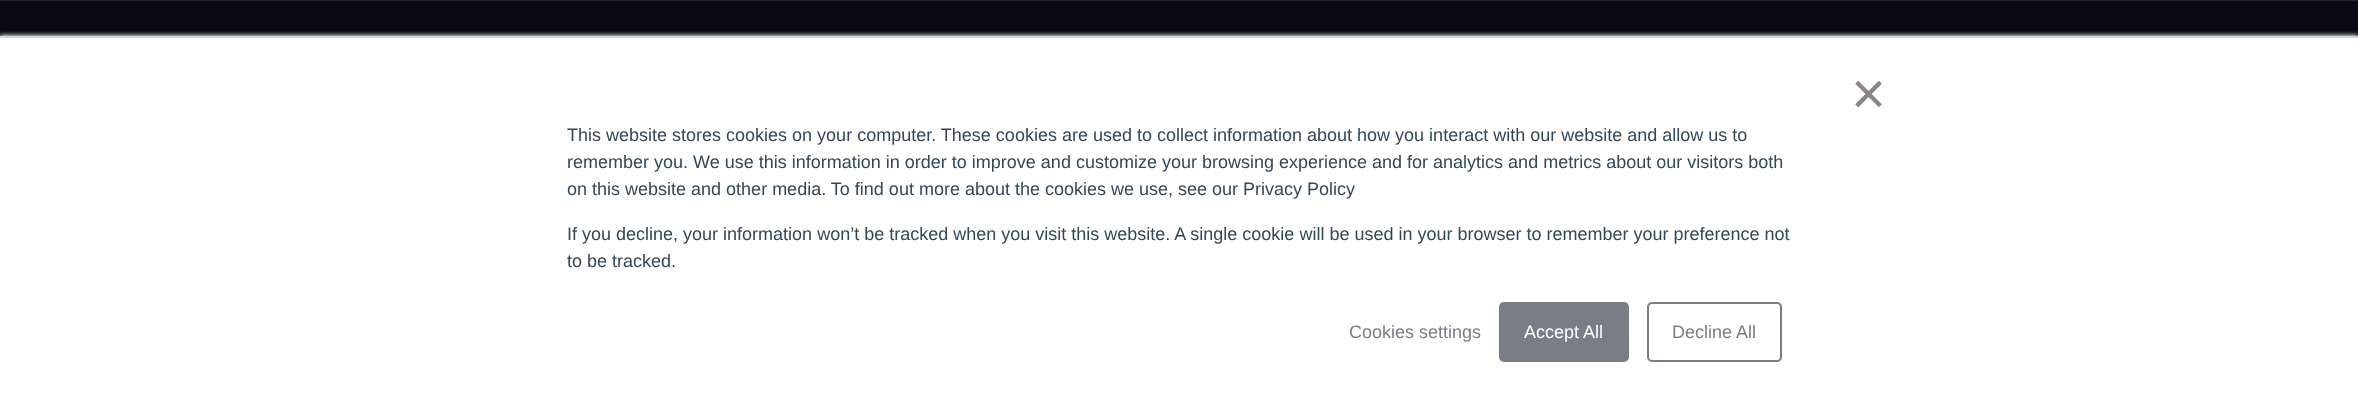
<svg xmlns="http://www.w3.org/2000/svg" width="2358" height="400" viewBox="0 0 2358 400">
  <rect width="100%" height="100%" fill="#0a0914"/>
  <path d="M0 0h2358v1H0z" fill="#22212c"/>
  <path d="M0 35h2358v364H0z" fill="#eaf0f6" filter="blur(2px)"/>
  <path d="M0 38h2358v362H0z" fill="#fff"/>
  <path d="M0 36h2358v2H0z" fill="#cbd6e2"/>
  <rect x="1500" y="303" width="128" height="58" rx="4" fill="#797d85" stroke="#797d85" stroke-width="2"/>
  <rect x="1648" y="303" width="133" height="58" rx="4" fill="none" stroke="#797d85" stroke-width="2"/>
  <text x="1851" y="114" font-family="Liberation Sans" font-size="60" fill="#8b8589">×</text>
  <g font-family="Liberation Sans" font-size="18" fill="#33475b">
    <text x="567" y="141">This website stores cookies on your computer. These cookies are used to collect information about how you interact with our website and allow us to</text>
    <text x="567" y="168">remember you. We use this information in order to improve and customize your browsing experience and for analytics and metrics about our visitors both</text>
    <text x="567" y="195">on this website and other media. To find out more about the cookies we use, see our Privacy Policy</text>
    <text x="567" y="240">If you decline, your information won’t be tracked when you visit this website. A single cookie will be used in your browser to remember your preference not</text>
    <text x="567" y="267">to be tracked.</text>
  </g>
  <text x="1349" y="338" font-family="Liberation Sans" font-size="18" fill="#797d85">Cookies settings</text>
  <text x="1524" y="338" font-family="Liberation Sans" font-size="18" fill="#fff">Accept All</text>
  <text x="1672" y="338" font-family="Liberation Sans" font-size="18" fill="#797d85">Decline All</text>
</svg>
